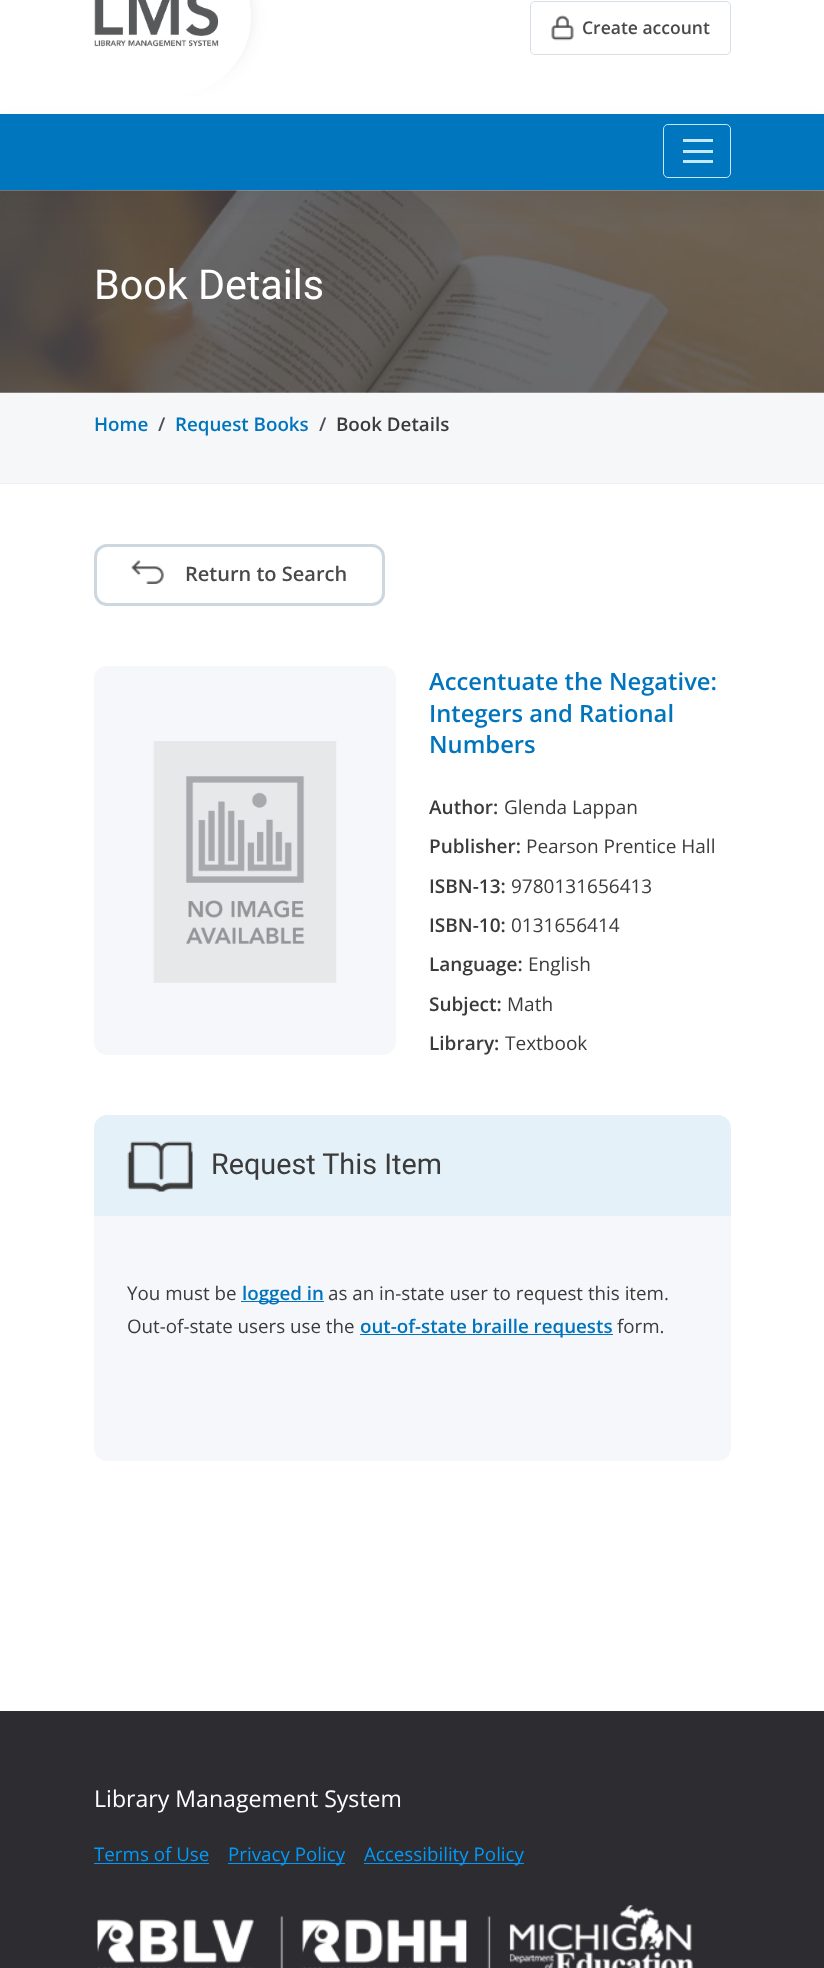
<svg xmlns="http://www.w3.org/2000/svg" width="824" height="1968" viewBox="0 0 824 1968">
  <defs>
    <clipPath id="clip1"><path d="M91 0H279V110H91ZM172-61H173C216-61 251-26 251 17C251 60 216 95 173 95H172C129 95 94 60 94 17C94-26 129-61 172-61Z" clip-rule="evenodd"/></clipPath>
  </defs>
  <rect width="100%" height="100%" fill="#fff"/>
  <g clip-path="url(#clip1)">
    <rect x="130" y="-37" width="110" height="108" rx="54" fill="#2d2d2d59" filter="blur(12.5px)"/>
  </g>
  <image x="94" y="0" width="125" height="47" href="img/1.png"/>
  <rect x="530.5" y="1.5" width="200" height="53" rx="4.5" fill="none" stroke="#d6dfe6"/>
  <image x="551" y="15" width="23" height="26" href="img/2.png"/>
  <image x="0" y="190" width="824" height="203" href="img/3.png"/>
  <path d="M0 126h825v77H0z" fill="#000f380f" filter="blur(12.5px)"/>
  <path d="M0 114h824v76H0z" fill="#0076be"/>
  <rect x="663.5" y="124.5" width="67" height="53" rx="4.5" fill="none" stroke="#c2e8ff"/>
  <path d="M683 139h30v3H683z" fill="#c2e8ff"/>
  <path d="M683 150h30v3H683z" fill="#c2e8ff"/>
  <path d="M683 160h30v3H683z" fill="#c2e8ff"/>
  <path d="M0 393h824v90H0z" fill="#f6f7f9"/>
  <path d="M0 483h824v1H0z" fill="#eff1f4"/>
  <rect x="95.5" y="545.5" width="288" height="59" rx="11.5" fill="none" stroke="#ccd7e0" stroke-width="3"/>
  <image x="131" y="560" width="33" height="24" href="img/4.png"/>
  <rect x="94" y="666" width="302" height="389" rx="13" fill="#f5f7fa"/>
  <image x="153" y="741" width="184" height="242" href="img/5.png"/>
  <path d="M107 1115H718C725 1115 731 1121 731 1128V1216H94V1128C94 1121 100 1115 107 1115Z" fill="#e5f1f8"/>
  <image x="127" y="1141" width="66" height="51" href="img/6.png"/>
  <path d="M94 1216H731V1448C731 1455 725 1461 718 1461H107C100 1461 94 1455 94 1448Z" fill="#f5f7fa"/>
  <path d="M241 1301h83v1H241z" fill="#0075bd"/>
  <path d="M360 1334h253v1H360z" fill="#0075bd"/>
  <path d="M0 1711h824v257H0z" fill="#2d2d31"/>
  <path d="M94 1863h115v1H94z" fill="#009afa"/>
  <path d="M228 1863h117v1H228z" fill="#009afa"/>
  <path d="M364 1863h160v1H364z" fill="#009afa"/>
  <image x="97" y="1905" width="597" height="63" href="img/7.png"/>
  <text x="582" y="34" font-family="Open Sans" font-size="17.5" font-weight="600" fill="#49494b">Create account</text>
  <text x="94" y="299" font-family="Roboto" font-size="41.25" fill="#fff">Book Details</text>
  <text x="94" y="431" font-family="Open Sans" font-size="18.75" font-weight="600" fill="#0075bd">Home</text>
  <text x="158" y="431" font-family="Open Sans" font-size="18.75" font-weight="600" fill="#495057">/</text>
  <text x="175" y="431" font-family="Open Sans" font-size="18.75" font-weight="600" fill="#0075bd">Request Books</text>
  <text x="319" y="431" font-family="Open Sans" font-size="18.75" font-weight="600" fill="#495057">/</text>
  <text x="336" y="431" font-family="Open Sans" font-size="18.75" font-weight="600" fill="#3b3b3b">Book Details</text>
  <text x="185" y="581" font-family="Open Sans" font-size="20" font-weight="600" fill="#49494b">Return to Search</text>
  <g font-family="Open Sans" font-size="23.75" font-weight="600" fill="#0075bd">
    <text x="429" y="690">Accentuate the Negative:</text>
    <text x="429" y="722">Integers and Rational</text>
    <text x="429" y="753">Numbers</text>
  </g>
  <text x="429" y="814" font-family="Open Sans" font-size="19" font-weight="600" fill="#3b3b3b">Author:</text>
  <text x="504" y="814" font-family="Open Sans" font-size="19" fill="#3b3b3b">Glenda Lappan</text>
  <text x="429" y="853" font-family="Open Sans" font-size="19" font-weight="600" fill="#3b3b3b">Publisher:</text>
  <text x="526" y="853" font-family="Open Sans" font-size="19" fill="#3b3b3b">Pearson Prentice Hall</text>
  <text x="429" y="893" font-family="Open Sans" font-size="19" font-weight="600" fill="#3b3b3b">ISBN-13:</text>
  <text x="511" y="893" font-family="Open Sans" font-size="19" fill="#3b3b3b">9780131656413</text>
  <text x="429" y="932" font-family="Open Sans" font-size="19" font-weight="600" fill="#3b3b3b">ISBN-10:</text>
  <text x="511" y="932" font-family="Open Sans" font-size="19" fill="#3b3b3b">0131656414</text>
  <text x="429" y="971" font-family="Open Sans" font-size="19" font-weight="600" fill="#3b3b3b">Language:</text>
  <text x="528" y="971" font-family="Open Sans" font-size="19" fill="#3b3b3b">English</text>
  <text x="429" y="1011" font-family="Open Sans" font-size="19" font-weight="600" fill="#3b3b3b">Subject:</text>
  <text x="507" y="1011" font-family="Open Sans" font-size="19" fill="#3b3b3b">Math</text>
  <text x="429" y="1050" font-family="Open Sans" font-size="19" font-weight="600" fill="#3b3b3b">Library:</text>
  <text x="505" y="1050" font-family="Open Sans" font-size="19" fill="#3b3b3b">Textbook</text>
  <text x="211" y="1174" font-family="Roboto" font-size="28.75" fill="#3b3b3b">Request This Item</text>
  <text x="127" y="1300" font-family="Open Sans" font-size="18.75" fill="#3b3b3b">You must be</text>
  <text x="242" y="1300" font-family="Open Sans" font-size="18.75" font-weight="600" fill="#0075bd">logged in</text>
  <g font-family="Open Sans" font-size="18.75" fill="#3b3b3b">
    <text x="328" y="1300">as an in-state user to request this item.</text>
    <text x="127" y="1333">Out-of-state users use the</text>
  </g>
  <text x="360" y="1333" font-family="Open Sans" font-size="18.75" font-weight="600" fill="#0075bd">out-of-state braille requests</text>
  <text x="617" y="1333" font-family="Open Sans" font-size="18.75" fill="#3b3b3b">form.</text>
  <text x="94" y="1807" font-family="Open Sans" font-size="23.1" fill="#fff">Library Management System</text>
  <g font-family="Open Sans" font-size="18.75" fill="#009afa">
    <text x="94" y="1861">Terms of Use</text>
    <text x="228" y="1861">Privacy Policy</text>
    <text x="364" y="1861">Accessibility Policy</text>
  </g>
</svg>
